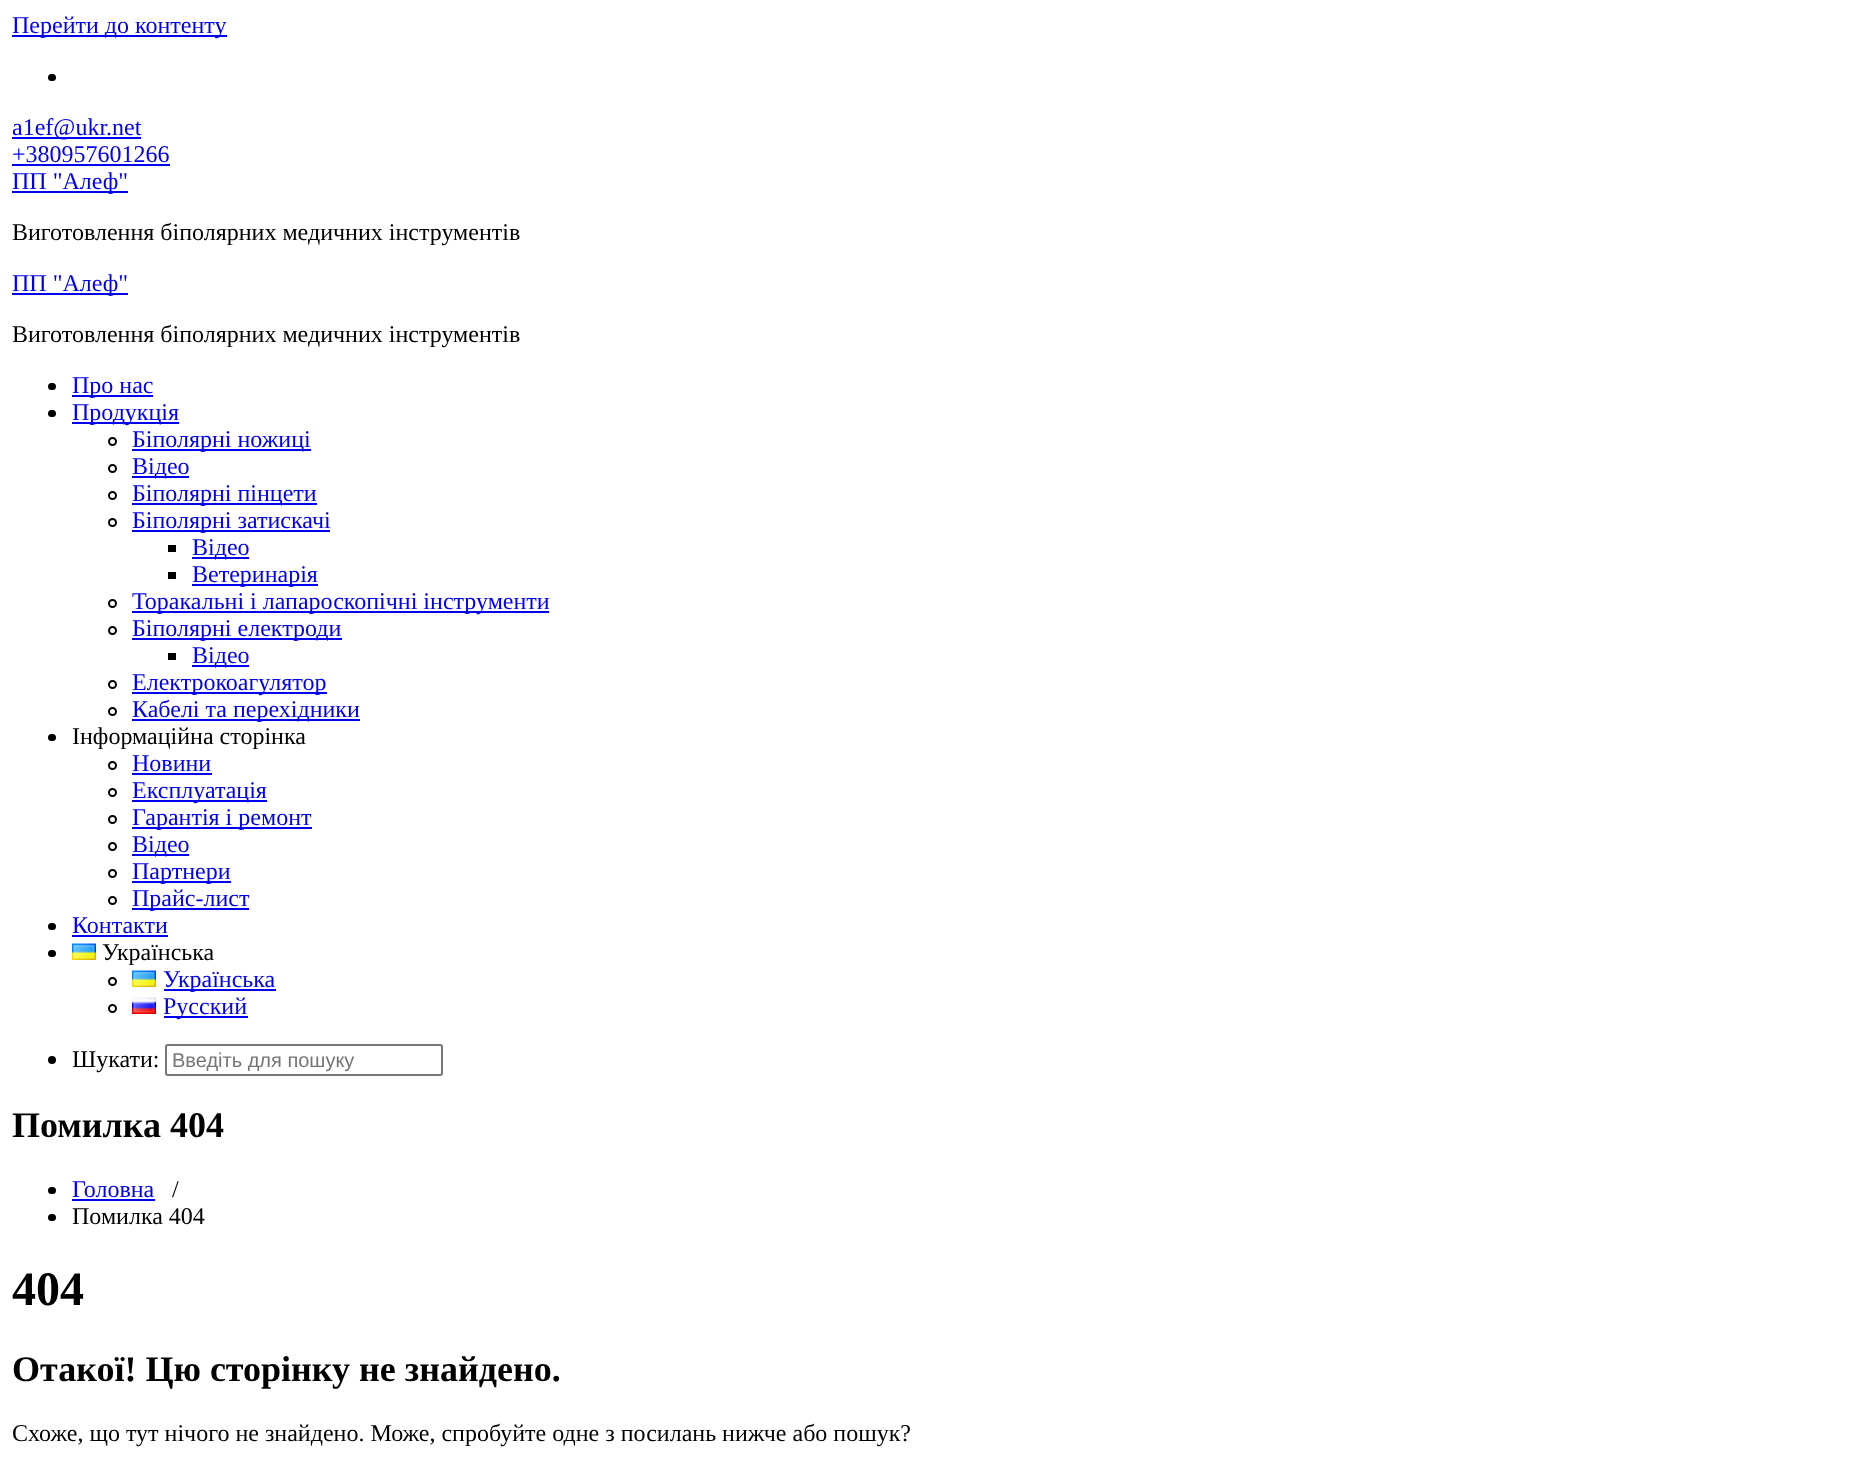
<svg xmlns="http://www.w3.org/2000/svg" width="1852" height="1463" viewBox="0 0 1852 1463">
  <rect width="100%" height="100%" fill="#fff"/>
  <path d="M12 35h215v2H12z" fill="#00e"/>
  <rect x="48" y="74" width="8" height="7" rx="3.5" fill="#000"/>
  <path d="M12 137h129v2H12z" fill="#00e"/>
  <path d="M12 164h158v2H12z" fill="#00e"/>
  <path d="M12 191h116v2H12z" fill="#00e"/>
  <path d="M12 293h116v2H12z" fill="#00e"/>
  <rect x="48" y="383" width="8" height="7" rx="3.5" fill="#000"/>
  <path d="M72 395h81v2H72z" fill="#00e"/>
  <rect x="48" y="410" width="8" height="7" rx="3.5" fill="#000"/>
  <path d="M72 422h107v2H72z" fill="#00e"/>
  <circle cx="112.5" cy="441.5" r="3.5" fill="none" stroke="#000" stroke-width="2"/>
  <path d="M132 449h179v2H132z" fill="#00e"/>
  <circle cx="112.5" cy="468.5" r="3.5" fill="none" stroke="#000" stroke-width="2"/>
  <path d="M132 476h57v2H132z" fill="#00e"/>
  <circle cx="112.5" cy="495.5" r="3.5" fill="none" stroke="#000" stroke-width="2"/>
  <path d="M132 503h185v2H132z" fill="#00e"/>
  <circle cx="112.5" cy="522.5" r="3.5" fill="none" stroke="#000" stroke-width="2"/>
  <path d="M132 530h198v2H132z" fill="#00e"/>
  <path d="M168 545h8v7H168z" fill="#000"/>
  <path d="M192 557h57v2H192z" fill="#00e"/>
  <path d="M168 572h8v7H168z" fill="#000"/>
  <path d="M192 584h126v2H192z" fill="#00e"/>
  <circle cx="112.5" cy="603.5" r="3.5" fill="none" stroke="#000" stroke-width="2"/>
  <path d="M132 611h417v2H132z" fill="#00e"/>
  <circle cx="112.5" cy="630.5" r="3.5" fill="none" stroke="#000" stroke-width="2"/>
  <path d="M132 638h210v2H132z" fill="#00e"/>
  <path d="M168 653h8v7H168z" fill="#000"/>
  <path d="M192 665h57v2H192z" fill="#00e"/>
  <circle cx="112.5" cy="684.5" r="3.5" fill="none" stroke="#000" stroke-width="2"/>
  <path d="M132 692h195v2H132z" fill="#00e"/>
  <circle cx="112.5" cy="711.5" r="3.5" fill="none" stroke="#000" stroke-width="2"/>
  <path d="M132 719h228v2H132z" fill="#00e"/>
  <rect x="48" y="734" width="8" height="7" rx="3.5" fill="#000"/>
  <circle cx="112.5" cy="765.5" r="3.5" fill="none" stroke="#000" stroke-width="2"/>
  <path d="M132 773h80v2H132z" fill="#00e"/>
  <circle cx="112.5" cy="792.5" r="3.5" fill="none" stroke="#000" stroke-width="2"/>
  <path d="M132 800h135v2H132z" fill="#00e"/>
  <circle cx="112.5" cy="819.5" r="3.5" fill="none" stroke="#000" stroke-width="2"/>
  <path d="M132 827h180v2H132z" fill="#00e"/>
  <circle cx="112.5" cy="846.5" r="3.5" fill="none" stroke="#000" stroke-width="2"/>
  <path d="M132 854h57v2H132z" fill="#00e"/>
  <circle cx="112.5" cy="873.5" r="3.5" fill="none" stroke="#000" stroke-width="2"/>
  <path d="M132 881h99v2H132z" fill="#00e"/>
  <circle cx="112.5" cy="900.5" r="3.5" fill="none" stroke="#000" stroke-width="2"/>
  <path d="M132 908h117v2H132z" fill="#00e"/>
  <rect x="48" y="923" width="8" height="7" rx="3.5" fill="#000"/>
  <path d="M72 935h96v2H72z" fill="#00e"/>
  <rect x="48" y="950" width="8" height="7" rx="3.5" fill="#000"/>
  <image x="72" y="943" width="24" height="17" href="img/1.png"/>
  <circle cx="112.5" cy="981.5" r="3.5" fill="none" stroke="#000" stroke-width="2"/>
  <image x="132" y="970" width="24" height="17" href="img/1.png"/>
  <path d="M164 989h112v2H164z" fill="#00e"/>
  <circle cx="112.5" cy="1008.5" r="3.5" fill="none" stroke="#000" stroke-width="2"/>
  <image x="132" y="997" width="24" height="17" href="img/2.png"/>
  <path d="M164 1016h84v2H164z" fill="#00e"/>
  <circle cx="52" cy="1060" r="4" fill="#000"/>
  <rect x="166" y="1045" width="276" height="30" rx="2" fill="none" stroke="#767676" stroke-width="2"/>
  <rect x="48" y="1187" width="8" height="7" rx="3.5" fill="#000"/>
  <path d="M72 1199h83v2H72z" fill="#00e"/>
  <rect x="48" y="1214" width="8" height="7" rx="3.5" fill="#000"/>
  <g font-family="Liberation Serif" font-size="24" fill="#00e">
    <text x="12" y="33">Перейти до контенту</text>
    <text x="12" y="135">a1ef@ukr.net</text>
    <text x="12" y="162">+380957601266</text>
    <text x="12" y="189">ПП "Алеф"</text>
  </g>
  <text x="12" y="240" font-family="Liberation Serif" font-size="24" fill="#000">Виготовлення біполярних медичних інструментів</text>
  <text x="12" y="291" font-family="Liberation Serif" font-size="24" fill="#00e">ПП "Алеф"</text>
  <text x="12" y="342" font-family="Liberation Serif" font-size="24" fill="#000">Виготовлення біполярних медичних інструментів</text>
  <g font-family="Liberation Serif" font-size="24" fill="#00e">
    <text x="72" y="393">Про нас</text>
    <text x="72" y="420">Продукція</text>
    <text x="132" y="447">Біполярні ножиці</text>
    <text x="132" y="474">Відео</text>
    <text x="132" y="501">Біполярні пінцети</text>
    <text x="132" y="528">Біполярні затискачі</text>
    <text x="192" y="555">Відео</text>
    <text x="192" y="582">Ветеринарія</text>
    <text x="132" y="609">Торакальні і лапароскопічні інструменти</text>
    <text x="132" y="636">Біполярні електроди</text>
    <text x="192" y="663">Відео</text>
    <text x="132" y="690">Електрокоагулятор</text>
    <text x="132" y="717">Кабелі та перехідники</text>
  </g>
  <text x="72" y="744" font-family="Liberation Serif" font-size="24" fill="#000">Інформаційна сторінка</text>
  <g font-family="Liberation Serif" font-size="24" fill="#00e">
    <text x="132" y="771">Новини</text>
    <text x="132" y="798">Експлуатація</text>
    <text x="132" y="825">Гарантія і ремонт</text>
    <text x="132" y="852">Відео</text>
    <text x="132" y="879">Партнери</text>
    <text x="132" y="906">Прайс-лист</text>
    <text x="72" y="933">Контакти</text>
  </g>
  <text x="102" y="960" font-family="Liberation Serif" font-size="24" fill="#000">Українська</text>
  <g font-family="Liberation Serif" font-size="24" fill="#00e">
    <text x="163" y="987">Українська</text>
    <text x="163" y="1014">Русский</text>
  </g>
  <text x="72" y="1067" font-family="Liberation Serif" font-size="24" fill="#000">Шукати:</text>
  <text x="172" y="1067" font-family="Liberation Sans" font-size="20" fill="#757575">Введіть для пошуку</text>
  <text x="12" y="1137" font-family="Liberation Serif" font-size="36" font-weight="bold" fill="#000">Помилка 404</text>
  <text x="72" y="1197" font-family="Liberation Serif" font-size="24" fill="#00e">Головна</text>
  <g font-family="Liberation Serif" font-size="24" fill="#000">
    <text x="172" y="1197">/</text>
    <text x="72" y="1224">Помилка 404</text>
  </g>
  <text x="12" y="1305" font-family="Liberation Serif" font-size="48" font-weight="bold" fill="#000">404</text>
  <text x="12" y="1381" font-family="Liberation Serif" font-size="36" font-weight="bold" fill="#000">Отакої! Цю сторінку не знайдено.</text>
  <text x="12" y="1441" font-family="Liberation Serif" font-size="24" fill="#000">Схоже, що тут нічого не знайдено. Може, спробуйте одне з посилань нижче або пошук?</text>
</svg>
